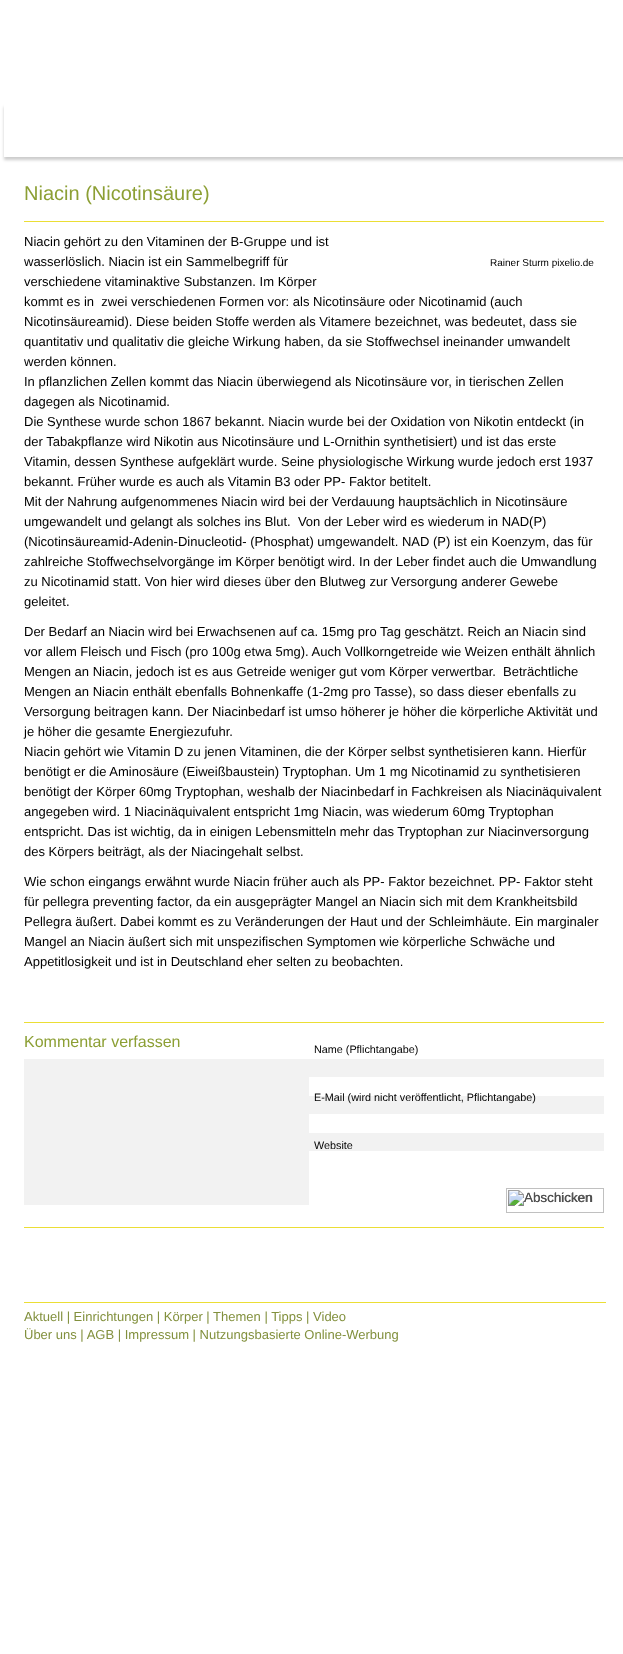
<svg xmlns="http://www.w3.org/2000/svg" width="623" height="1654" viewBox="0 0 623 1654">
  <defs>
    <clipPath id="clip1"><path d="M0 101H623V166H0ZM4 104H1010V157H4Z" clip-rule="evenodd"/></clipPath>
  </defs>
  <rect width="100%" height="100%" fill="#fff"/>
  <g clip-path="url(#clip1)">
    <path d="M4 107h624v53H4z" fill="#00000033" filter="blur(1.5px)"/>
  </g>
  <path d="M24 221h580v1H24z" fill="#ebde35"/>
  <path d="M24 1022h580v1H24z" fill="#ebde35"/>
  <path d="M24 1227h580v1H24z" fill="#ebde35"/>
  <path d="M309 1059h295v18H309z" fill="#f2f2f2"/>
  <path d="M24 1059h285v146H24z" fill="#f2f2f2"/>
  <path d="M309 1096h295v18H309z" fill="#f2f2f2"/>
  <path d="M309 1133h295v18H309z" fill="#f2f2f2"/>
  <image x="506" y="1188" width="98" height="25" href="img/1.png"/>
  <path d="M24 1302h582v1H24z" fill="#ebde35"/>
  <text x="24" y="200" font-family="Liberation Sans" font-size="20" fill="#8c9f34">Niacin (Nicotinsäure)</text>
  <g font-family="Liberation Sans" font-size="13" fill="#000">
    <text x="24" y="246">Niacin gehört zu den Vitaminen der B-Gruppe und ist</text>
    <text x="24" y="266">wasserlöslich. Niacin ist ein Sammelbegriff für</text>
    <text x="24" y="286">verschiedene vitaminaktive Substanzen. Im Körper</text>
    <text x="24" y="306" xml:space="preserve">kommt es in  zwei verschiedenen Formen vor: als Nicotinsäure oder Nicotinamid (auch</text>
    <text x="24" y="326">Nicotinsäureamid). Diese beiden Stoffe werden als Vitamere bezeichnet, was bedeutet, dass sie</text>
    <text x="24" y="346">quantitativ und qualitativ die gleiche Wirkung haben, da sie Stoffwechsel ineinander umwandelt</text>
    <text x="24" y="366">werden können.</text>
    <text x="24" y="386">In pflanzlichen Zellen kommt das Niacin überwiegend als Nicotinsäure vor, in tierischen Zellen</text>
    <text x="24" y="406">dagegen als Nicotinamid.</text>
    <text x="24" y="426">Die Synthese wurde schon 1867 bekannt. Niacin wurde bei der Oxidation von Nikotin entdeckt (in</text>
    <text x="24" y="446">der Tabakpflanze wird Nikotin aus Nicotinsäure und L-Ornithin synthetisiert) und ist das erste</text>
    <text x="24" y="466">Vitamin, dessen Synthese aufgeklärt wurde. Seine physiologische Wirkung wurde jedoch erst 1937</text>
    <text x="24" y="486">bekannt. Früher wurde es auch als Vitamin B3 oder PP- Faktor betitelt.</text>
    <text x="24" y="506">Mit der Nahrung aufgenommenes Niacin wird bei der Verdauung hauptsächlich in Nicotinsäure</text>
    <text x="24" y="526" xml:space="preserve">umgewandelt und gelangt als solches ins Blut.  Von der Leber wird es wiederum in NAD(P)</text>
    <text x="24" y="546">(Nicotinsäureamid-Adenin-Dinucleotid- (Phosphat) umgewandelt. NAD (P) ist ein Koenzym, das für</text>
    <text x="24" y="566">zahlreiche Stoffwechselvorgänge im Körper benötigt wird. In der Leber findet auch die Umwandlung</text>
    <text x="24" y="586">zu Nicotinamid statt. Von hier wird dieses über den Blutweg zur Versorgung anderer Gewebe</text>
    <text x="24" y="606">geleitet.</text>
  </g>
  <text x="490" y="266" font-family="Liberation Sans" font-size="10" fill="#000">Rainer Sturm pixelio.de</text>
  <g font-family="Liberation Sans" font-size="13" fill="#000">
    <text x="24" y="636">Der Bedarf an Niacin wird bei Erwachsenen auf ca. 15mg pro Tag geschätzt. Reich an Niacin sind</text>
    <text x="24" y="656">vor allem Fleisch und Fisch (pro 100g etwa 5mg). Auch Vollkorngetreide wie Weizen enthält ähnlich</text>
    <text x="24" y="676" xml:space="preserve">Mengen an Niacin, jedoch ist es aus Getreide weniger gut vom Körper verwertbar.  Beträchtliche</text>
    <text x="24" y="696">Mengen an Niacin enthält ebenfalls Bohnenkaffe (1-2mg pro Tasse), so dass dieser ebenfalls zu</text>
    <text x="24" y="716">Versorgung beitragen kann. Der Niacinbedarf ist umso höherer je höher die körperliche Aktivität und</text>
    <text x="24" y="736">je höher die gesamte Energiezufuhr.</text>
    <text x="24" y="756">Niacin gehört wie Vitamin D zu jenen Vitaminen, die der Körper selbst synthetisieren kann. Hierfür</text>
    <text x="24" y="776">benötigt er die Aminosäure (Eiweißbaustein) Tryptophan. Um 1 mg Nicotinamid zu synthetisieren</text>
    <text x="24" y="796">benötigt der Körper 60mg Tryptophan, weshalb der Niacinbedarf in Fachkreisen als Niacinäquivalent</text>
    <text x="24" y="816">angegeben wird. 1 Niacinäquivalent entspricht 1mg Niacin, was wiederum 60mg Tryptophan</text>
    <text x="24" y="836">entspricht. Das ist wichtig, da in einigen Lebensmitteln mehr das Tryptophan zur Niacinversorgung</text>
    <text x="24" y="856">des Körpers beiträgt, als der Niacingehalt selbst.</text>
    <text x="24" y="886">Wie schon eingangs erwähnt wurde Niacin früher auch als PP- Faktor bezeichnet. PP- Faktor steht</text>
    <text x="24" y="906">für pellegra preventing factor, da ein ausgeprägter Mangel an Niacin sich mit dem Krankheitsbild</text>
    <text x="24" y="926">Pellegra äußert. Dabei kommt es zu Veränderungen der Haut und der Schleimhäute. Ein marginaler</text>
    <text x="24" y="946">Mangel an Niacin äußert sich mit unspezifischen Symptomen wie körperliche Schwäche und</text>
    <text x="24" y="966">Appetitlosigkeit und ist in Deutschland eher selten zu beobachten.</text>
  </g>
  <text x="24" y="1047" font-family="Liberation Sans" font-size="16" fill="#8c9f34">Kommentar verfassen</text>
  <g font-family="Liberation Sans" font-size="10.8" fill="#000">
    <text x="314" y="1053">Name (Pflichtangabe)</text>
    <text x="314" y="1101">E-Mail (wird nicht veröffentlicht, Pflichtangabe)</text>
    <text x="314" y="1149">Website</text>
  </g>
  <text x="524" y="1202" font-family="Liberation Sans" font-size="13.5" fill="#505050">Abschicken</text>
  <g font-family="Liberation Sans" font-size="13" fill="#82903d">
    <text x="24" y="1321">Aktuell | Einrichtungen | Körper | Themen | Tipps | Video</text>
    <text x="24" y="1339">Über uns | AGB | Impressum | Nutzungsbasierte Online-Werbung</text>
  </g>
</svg>
